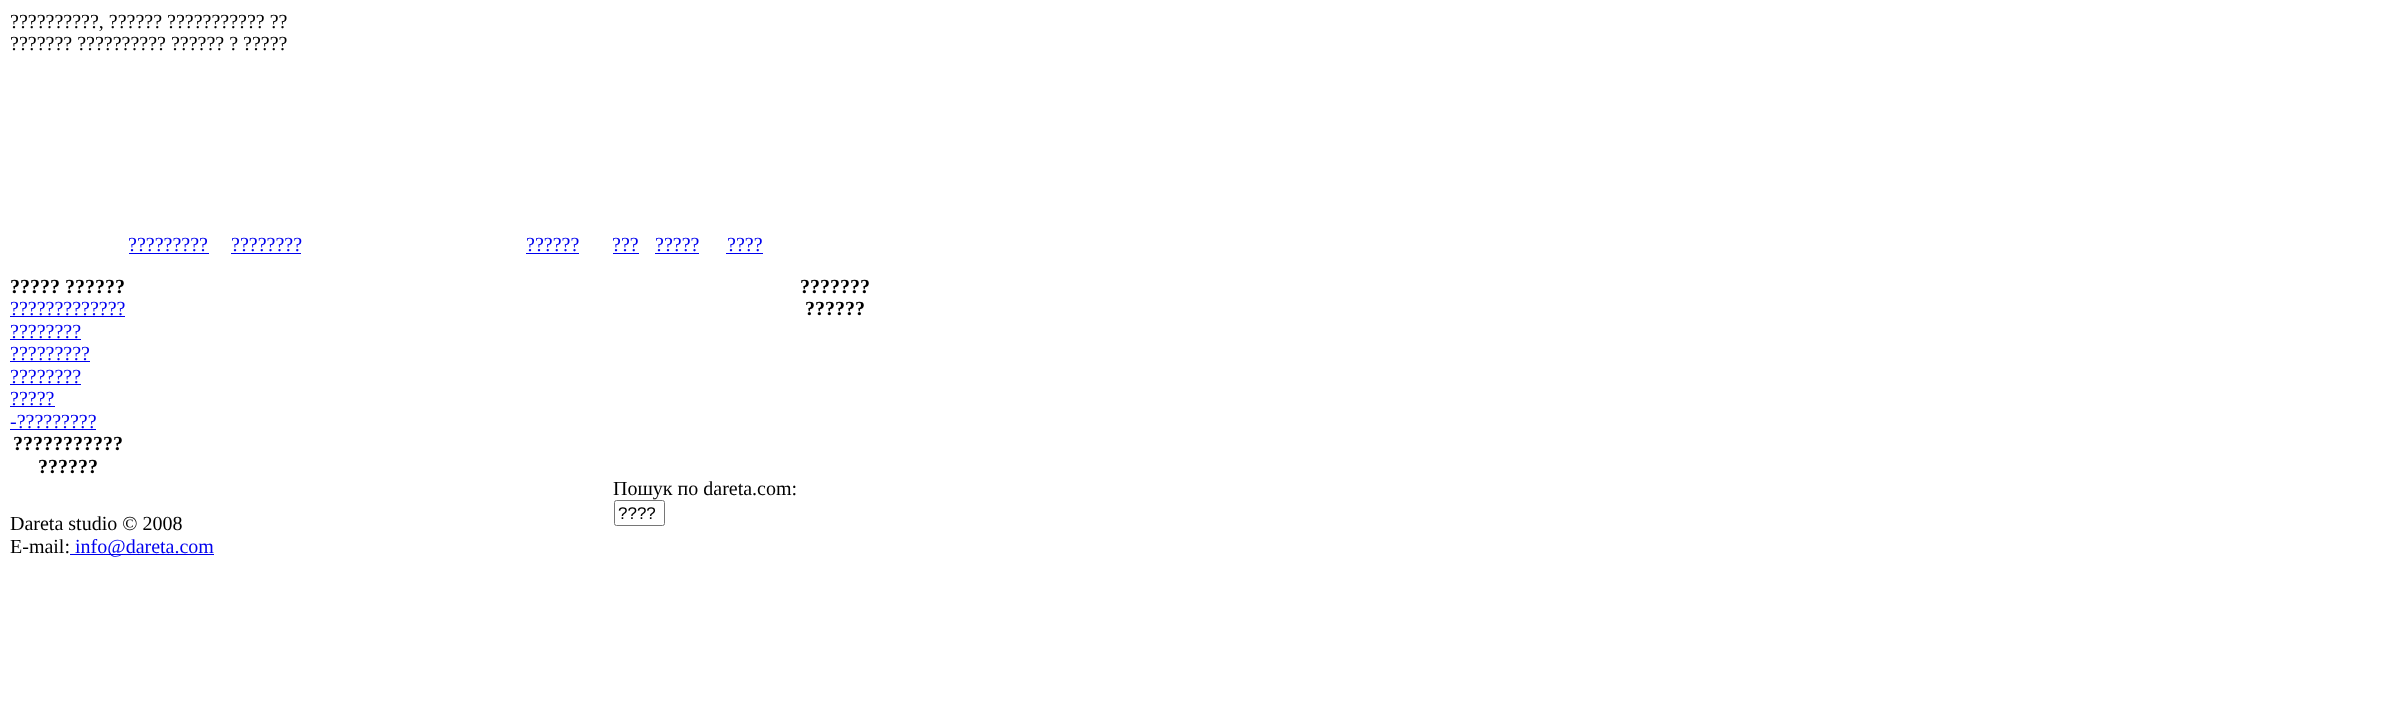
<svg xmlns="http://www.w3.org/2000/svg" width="2398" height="712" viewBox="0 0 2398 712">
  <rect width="100%" height="100%" fill="#fff"/>
  <path d="M129 253h80v1H129z" fill="#00e"/>
  <path d="M231 253h70v1H231z" fill="#00e"/>
  <path d="M526 253h53v1H526z" fill="#00e"/>
  <path d="M613 253h26v1H613z" fill="#00e"/>
  <path d="M655 253h44v1H655z" fill="#00e"/>
  <path d="M726 253h37v1H726z" fill="#00e"/>
  <path d="M10 316h115v1H10z" fill="#00e"/>
  <path d="M10 339h71v1H10z" fill="#00e"/>
  <path d="M10 361h80v1H10z" fill="#00e"/>
  <path d="M10 384h71v1H10z" fill="#00e"/>
  <path d="M10 406h45v1H10z" fill="#00e"/>
  <path d="M10 429h86v1H10z" fill="#00e"/>
  <rect x="614.5" y="500.5" width="50" height="25" rx="2" fill="none" stroke="#767676"/>
  <path d="M70 554h144v1H70z" fill="#00e"/>
  <g font-family="Liberation Serif" font-size="20" fill="#000">
    <text x="10" y="28">??????????, ?????? ??????????? ??</text>
    <text x="10" y="50">??????? ?????????? ?????? ? ?????</text>
  </g>
  <g font-family="Liberation Serif" font-size="20" fill="#00e">
    <text x="128" y="251">?????????</text>
    <text x="231" y="251">????????</text>
    <text x="526" y="251">??????</text>
    <text x="612" y="251">???</text>
    <text x="655" y="251">?????</text>
    <text x="727" y="251">????</text>
  </g>
  <text x="10" y="293" font-family="Liberation Serif" font-size="20" font-weight="bold" fill="#000">????? ??????</text>
  <g font-family="Liberation Serif" font-size="20" fill="#00e">
    <text x="10" y="315">?????????????</text>
    <text x="10" y="338">????????</text>
    <text x="10" y="360">?????????</text>
    <text x="10" y="383">????????</text>
    <text x="10" y="405">?????</text>
    <text x="10" y="428">-?????????</text>
  </g>
  <g font-family="Liberation Serif" font-size="20" font-weight="bold" fill="#000">
    <text x="13" y="450">???????????</text>
    <text x="38" y="473">??????</text>
    <text x="800" y="293">???????</text>
    <text x="805" y="315">??????</text>
  </g>
  <text x="613" y="495" font-family="Liberation Serif" font-size="20" fill="#000">Пошук по dareta.com:</text>
  <text x="618" y="519" font-family="Liberation Sans" font-size="17" fill="#000">????</text>
  <g font-family="Liberation Serif" font-size="20" fill="#000">
    <text x="10" y="530">Dareta studio © 2008</text>
    <text x="10" y="553">E-mail:</text>
  </g>
  <text x="75" y="553" font-family="Liberation Serif" font-size="20" fill="#00e">info@dareta.com</text>
</svg>
